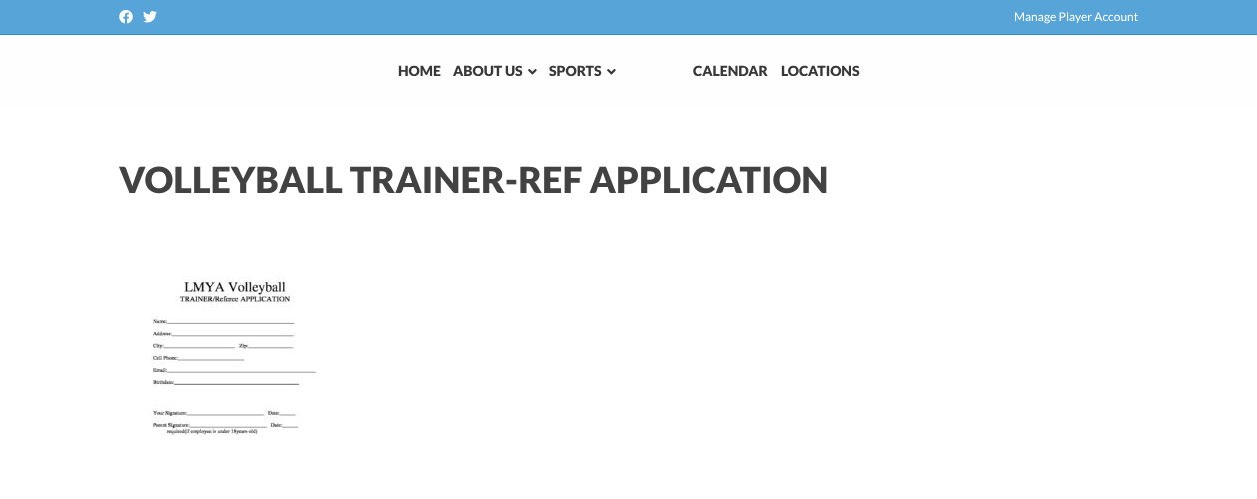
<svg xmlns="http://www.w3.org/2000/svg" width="1257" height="499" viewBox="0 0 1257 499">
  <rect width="100%" height="100%" fill="#56a4d8"/>
  <path d="M0 34h1257v1H0z" fill="#2f8dcc"/>
  <image x="119" y="10" width="14" height="14" href="img/1.png"/>
  <image x="143" y="11" width="14" height="12" href="img/2.png"/>
  <path d="M0 35h1257v73H0z" fill="#fffefe"/>
  <image x="528" y="69" width="9" height="6" href="img/3.png"/>
  <image x="607" y="69" width="9" height="6" href="img/3.png"/>
  <path d="M0 108h1257v391H0z" fill="#fff"/>
  <image x="151" y="276" width="168" height="160" href="img/4.png"/>
  <text x="1014" y="21" font-family="Lato" font-size="12" fill="#fff">Manage Player Account</text>
  <g font-family="Lato" font-size="14" font-weight="900" fill="#383838">
    <text x="398" y="76">HOME</text>
    <text x="453" y="76">ABOUT US</text>
    <text x="549" y="76">SPORTS</text>
    <text x="693" y="76">CALENDAR</text>
    <text x="781" y="76">LOCATIONS</text>
  </g>
  <text x="119" y="193" font-family="Lato" font-size="36" font-weight="900" fill="#424242">VOLLEYBALL TRAINER-REF APPLICATION</text>
</svg>
